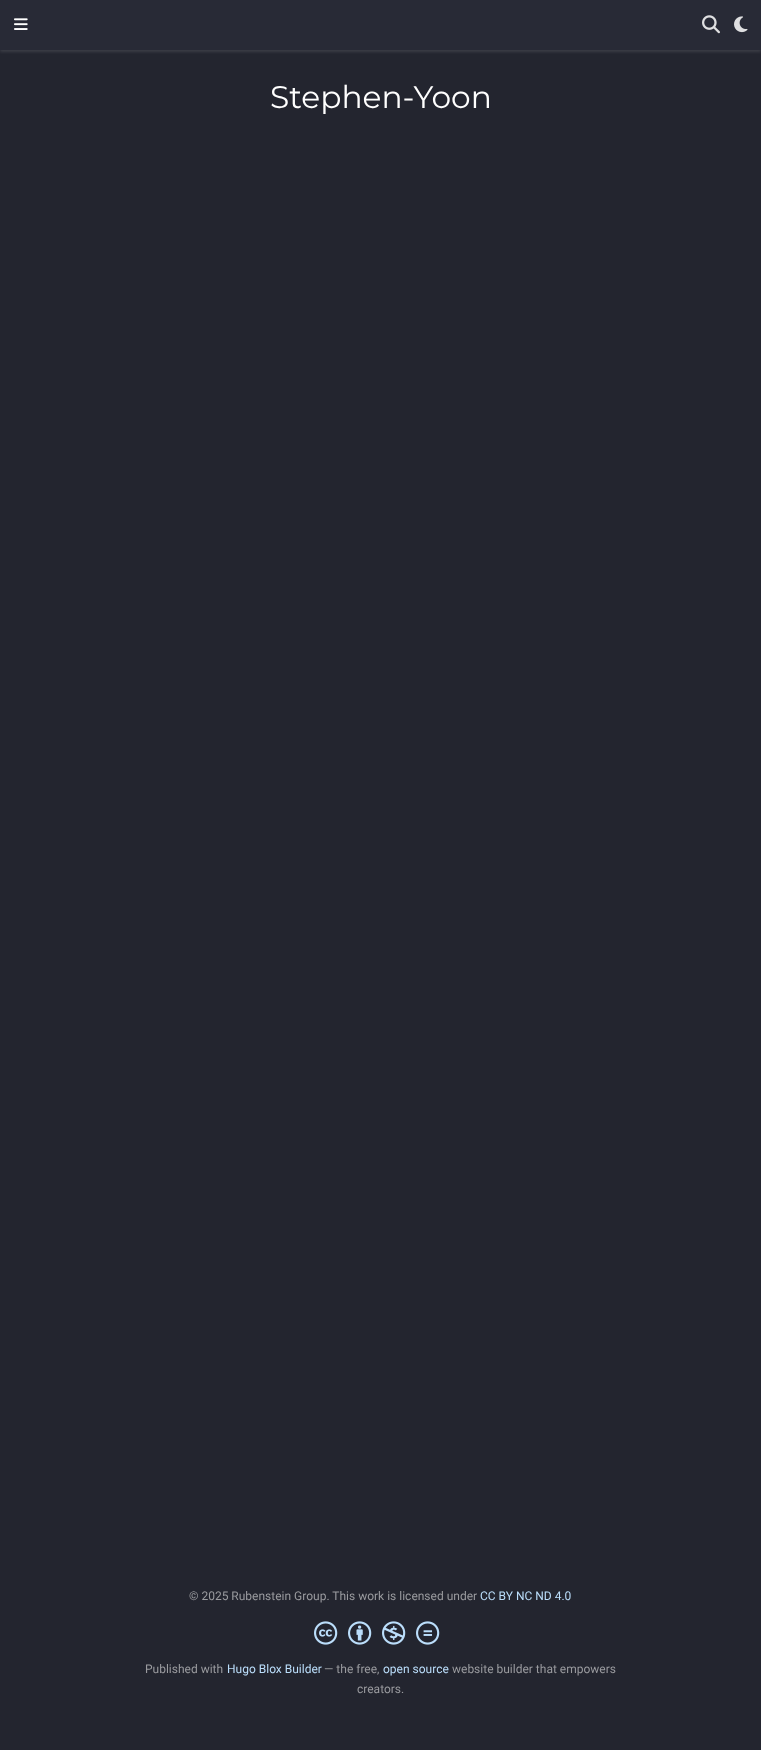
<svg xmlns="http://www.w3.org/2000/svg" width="761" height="1750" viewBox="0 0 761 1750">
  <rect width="100%" height="100%" fill="#23252f"/>
  <path d="M0 2h761v50H0z" fill="#ffffff1c" filter="blur(1.5px)"/>
  <path d="M0 0h761v50H0z" fill="#282a36"/>
  <image x="14" y="18" width="14" height="12" href="img/1.png"/>
  <image x="702" y="15" width="18" height="19" href="img/2.png"/>
  <image x="734" y="16" width="14" height="17" href="img/3.png"/>
  <image x="314" y="1621" width="24" height="24" href="img/4.png"/>
  <image x="348" y="1621" width="24" height="24" href="img/5.png"/>
  <image x="382" y="1621" width="24" height="24" href="img/6.png"/>
  <image x="416" y="1621" width="24" height="24" href="img/7.png"/>
  <text x="270" y="108" font-family="Montserrat" font-size="31.25" fill="#fff">Stephen-Yoon</text>
  <text x="189" y="1600" font-family="Roboto" font-size="12" fill="#9a9b9f">© 2025 Rubenstein Group. This work is licensed under</text>
  <text x="480" y="1600" font-family="Roboto" font-size="12" fill="#bbdefb">CC BY NC ND 4.0</text>
  <text x="145" y="1673" font-family="Roboto" font-size="12" fill="#9a9b9f">Published with</text>
  <text x="227" y="1673" font-family="Roboto" font-size="12" fill="#bbdefb">Hugo Blox Builder</text>
  <text x="324" y="1673" font-family="Roboto" font-size="12" fill="#9a9b9f">— the free,</text>
  <text x="383" y="1673" font-family="Roboto" font-size="12" fill="#bbdefb">open source</text>
  <g font-family="Roboto" font-size="12" fill="#9a9b9f">
    <text x="452" y="1673">website builder that empowers</text>
    <text x="357" y="1693">creators.</text>
  </g>
</svg>
